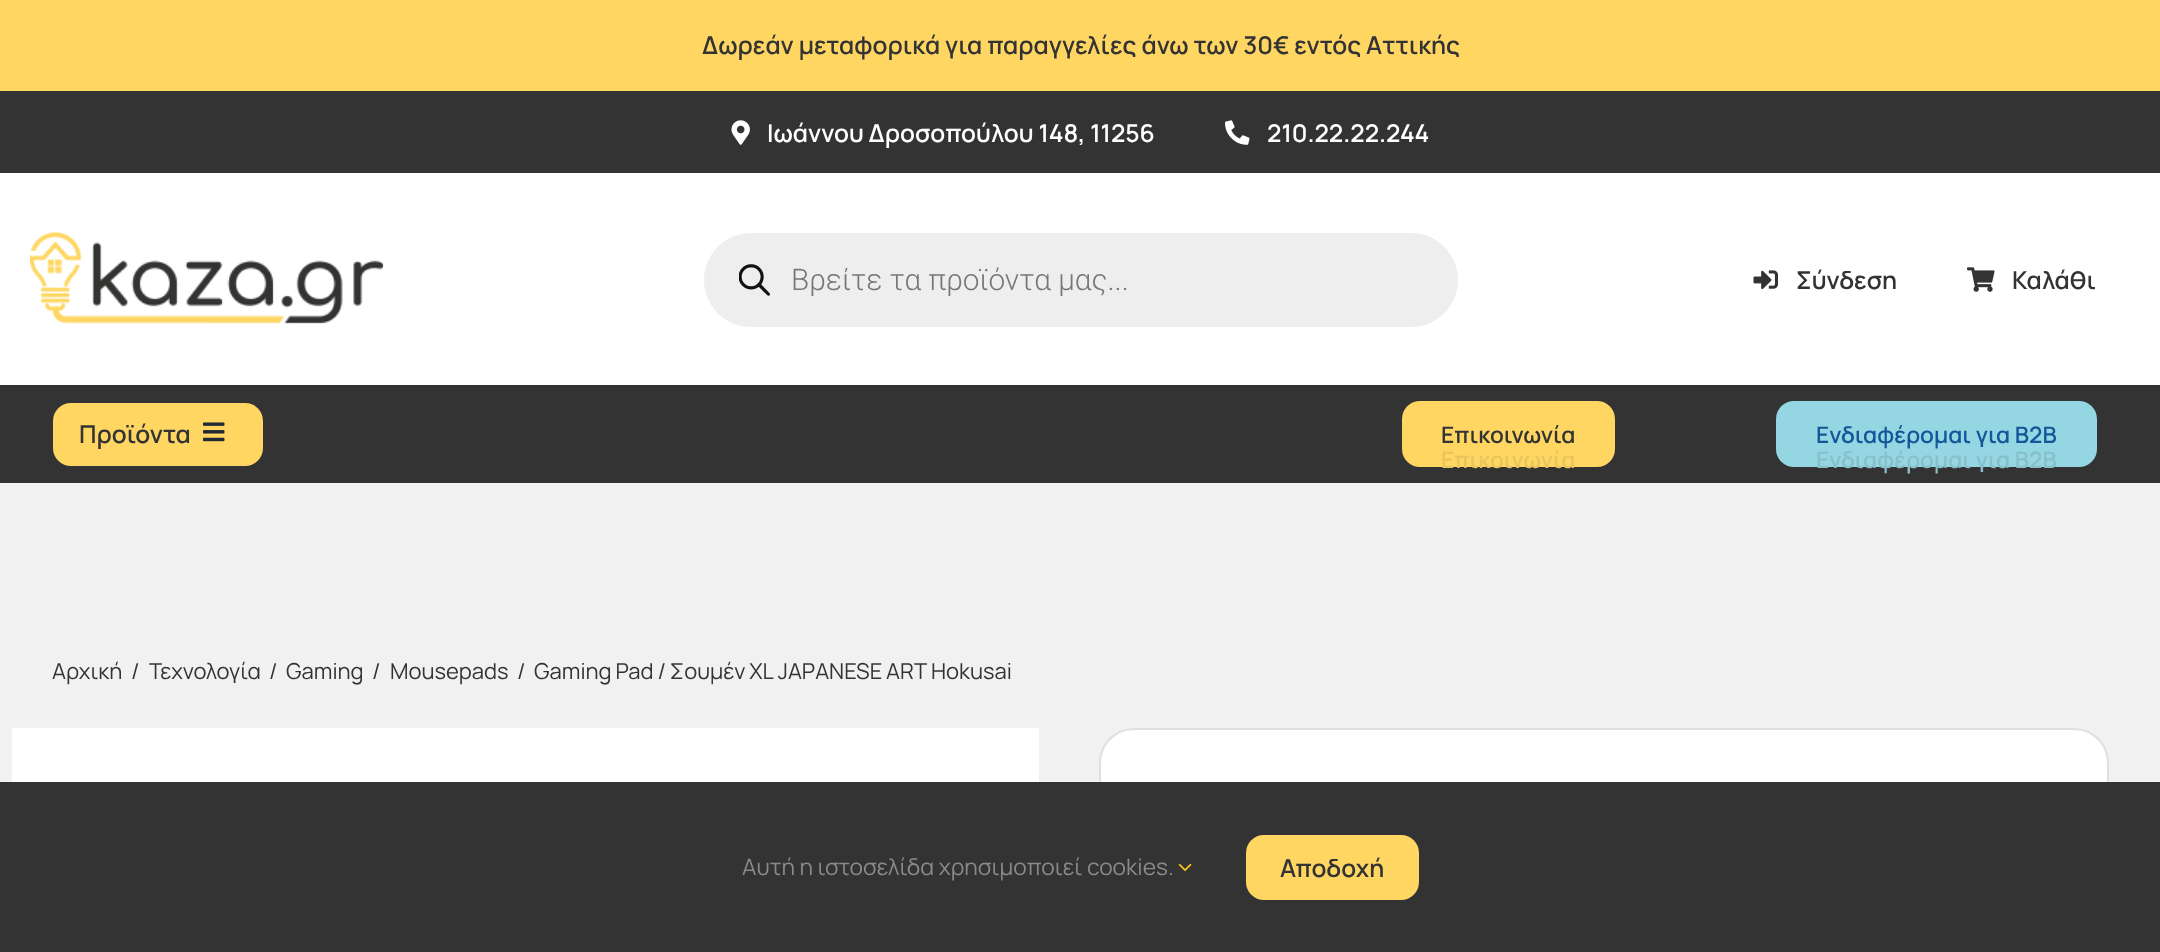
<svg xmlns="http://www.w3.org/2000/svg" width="2160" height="952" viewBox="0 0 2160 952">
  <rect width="100%" height="100%" fill="#f1f1f1"/>
  <path d="M0 0h2160v91H0z" fill="#ffd662"/>
  <path d="M0 91h2160v82H0z" fill="#333"/>
  <image x="731" y="120" width="19" height="25" href="img/1.png"/>
  <image x="1225" y="120" width="25" height="25" href="img/2.png"/>
  <path d="M0 173h2160v212H0z" fill="#fff"/>
  <image x="29" y="232" width="355" height="92" href="img/3.png"/>
  <rect x="704" y="233" width="754" height="94" rx="47" fill="#eee"/>
  <image x="739" y="264" width="31" height="32" href="img/4.png"/>
  <image x="1753" y="270" width="25" height="20" href="img/5.png"/>
  <image x="1967" y="267" width="28" height="25" href="img/6.png"/>
  <path d="M0 385h2160v98H0z" fill="#333"/>
  <rect x="53" y="403" width="210" height="63" rx="18" fill="#ffd662"/>
  <image x="203" y="422" width="22" height="20" href="img/7.png"/>
  <rect x="1402" y="401" width="213" height="66" rx="18" fill="#ffd662"/>
  <rect x="1776" y="401" width="321" height="66" rx="18" fill="#94d6e2"/>
  <path d="M12 728h1027v54H12z" fill="#fff"/>
  <rect x="1100" y="729" width="1008" height="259" rx="34" fill="#fff" stroke="#e0e0e0" stroke-width="2"/>
  <path d="M0 782h2160v170H0z" fill="#333"/>
  <image x="1178" y="863" width="14" height="9" href="img/8.png"/>
  <rect x="1246" y="835" width="173" height="65" rx="18" fill="#ffd662"/>
  <text x="702" y="54" font-family="Manrope" font-size="24.5" font-weight="600" fill="#333">Δωρεάν μεταφορικά για παραγγελίες άνω των 30€ εντός Αττικής</text>
  <g font-family="Manrope" font-size="24.5" font-weight="600" fill="#fff">
    <text x="767" y="142">Ιωάννου Δροσοπούλου 148, 11256</text>
    <text x="1267" y="142">210.22.22.244</text>
  </g>
  <text x="791" y="290" font-family="Roboto" font-size="29.75" font-weight="300" fill="#777">Βρείτε τα προϊόντα μας...</text>
  <g font-family="Manrope" font-size="24.5" font-weight="600" fill="#333">
    <text x="1796" y="289">Σύνδεση</text>
    <text x="2012" y="289">Καλάθι</text>
    <text x="79" y="443">Προϊόντα</text>
  </g>
  <text x="1441" y="443" font-family="Manrope" font-size="22.75" font-weight="600" fill="#333">Επικοινωνία</text>
  <text x="1441" y="468" font-family="Manrope" font-size="22.75" font-weight="600" fill="#e9c55d">Επικοινωνία</text>
  <text x="1816" y="443" font-family="Manrope" font-size="22.75" font-weight="600" fill="#135699">Ενδιαφέρομαι για B2B</text>
  <text x="1816" y="468" font-family="Manrope" font-size="22.75" font-weight="600" fill="#87c0ca">Ενδιαφέρομαι για B2B</text>
  <g font-family="Manrope" font-size="22" fill="#333">
    <text x="52" y="679">Αρχική</text>
    <text x="131" y="679">/</text>
    <text x="149" y="679">Τεχνολογία</text>
    <text x="269" y="679">/</text>
    <text x="286" y="679">Gaming</text>
    <text x="372" y="679">/</text>
    <text x="390" y="679">Mousepads</text>
    <text x="517" y="679">/</text>
    <text x="534" y="679" word-spacing="-0.5">Gaming Pad / Σουμέν XL JAPANESE ART Hokusai</text>
  </g>
  <text x="742" y="875" font-family="Manrope" font-size="22.75" fill="#8c8989">Αυτή η ιστοσελίδα χρησιμοποιεί cookies.</text>
  <text x="1280" y="877" font-family="Manrope" font-size="24.5" font-weight="600" fill="#333">Αποδοχή</text>
</svg>
